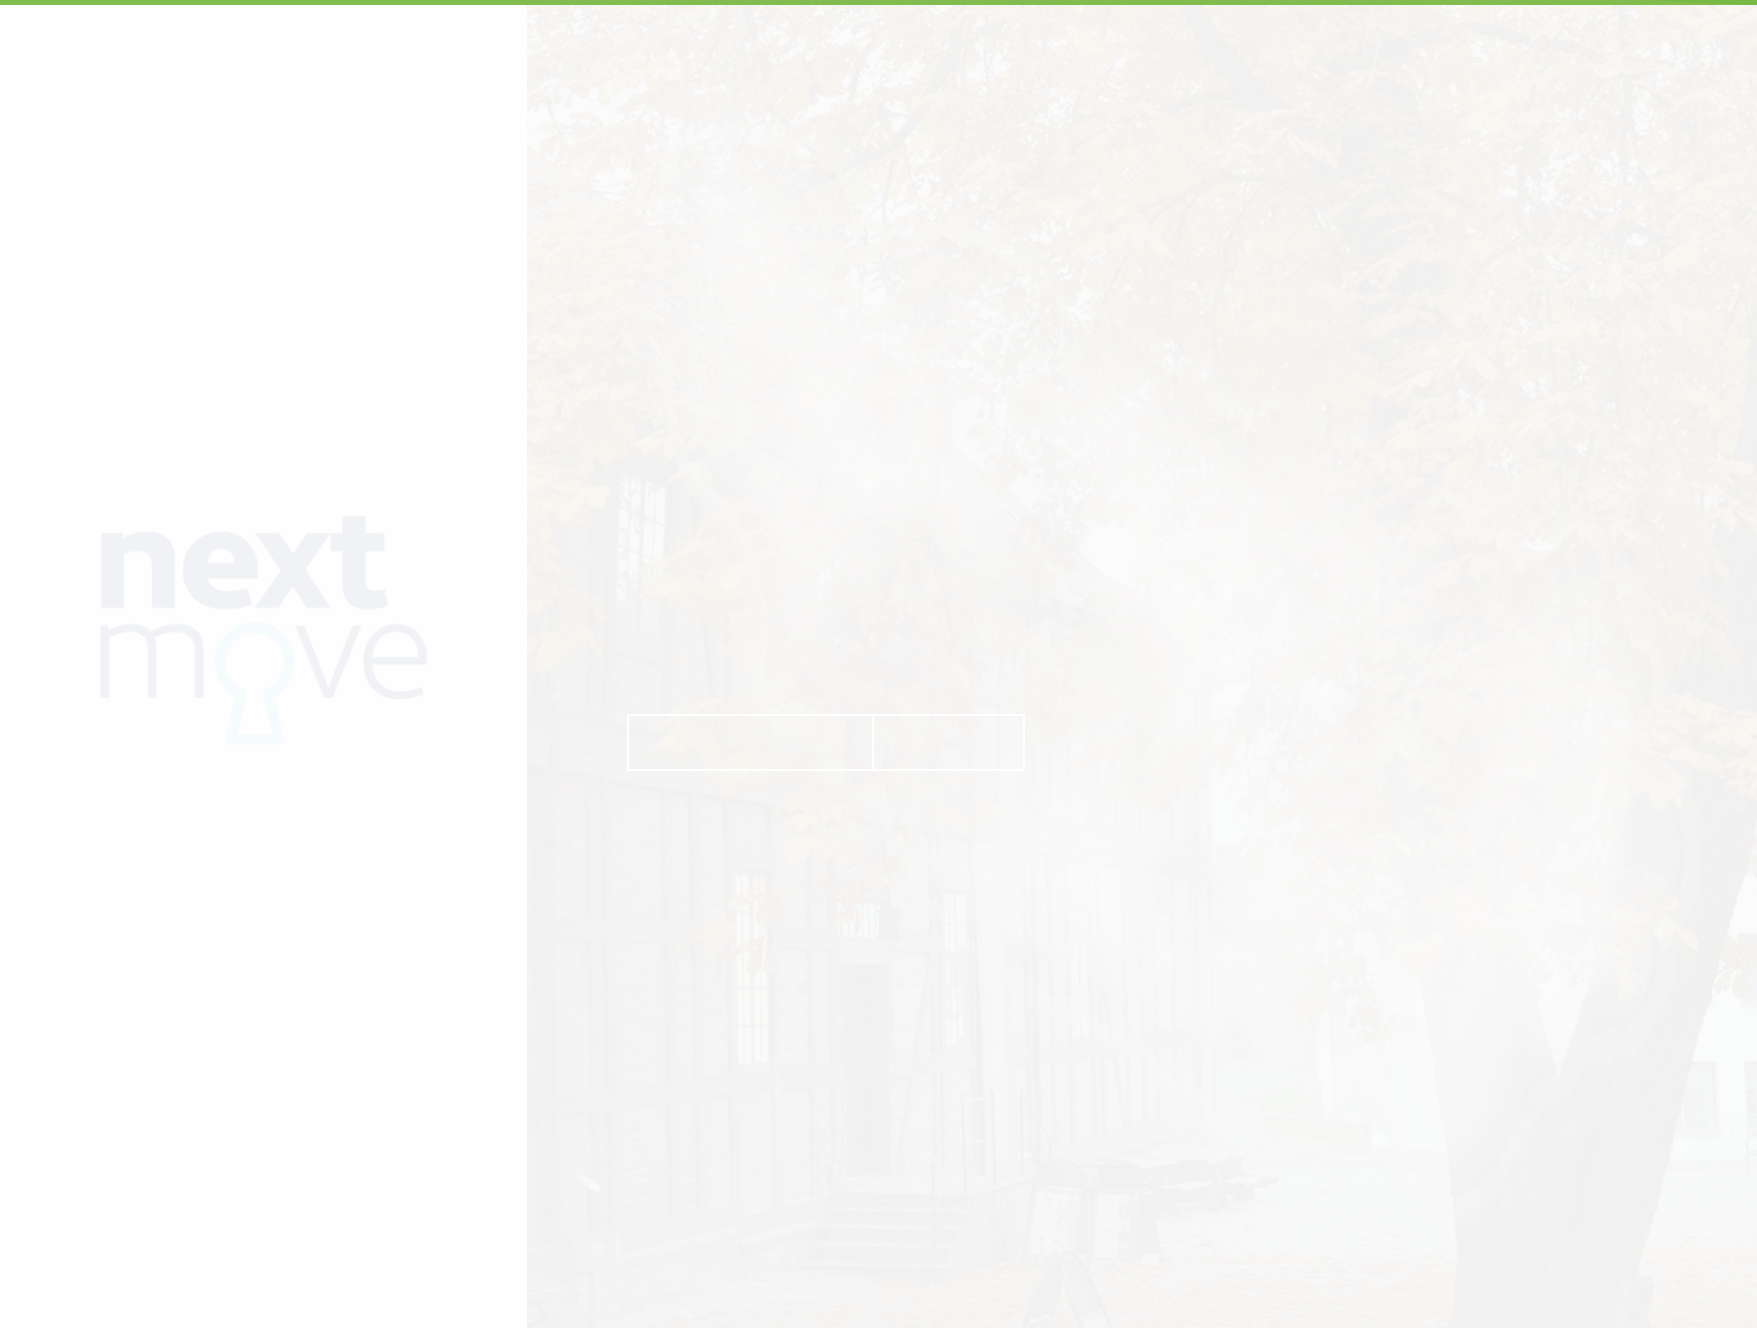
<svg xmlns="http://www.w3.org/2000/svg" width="1757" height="1328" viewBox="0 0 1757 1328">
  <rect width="100%" height="100%" fill="#fefefe"/>
  <image x="527" y="0" width="1230" height="1328" href="img/2.png"/>
  <path d="M0 0h1757v5H0z" fill="#79b843f0"/>
  <path d="M1657-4L1757 0V5L1657 1Z" fill="#79b844"/>
  <image x="100" y="515" width="328" height="231" href="img/1.png"/>
  <image x="572" y="67" width="1160" height="1201" href="img/4.png"/>
  <image x="598" y="63" width="1119" height="1231" href="img/3.png"/>
  <image x="572" y="67" width="1160" height="1201" href="img/5.png"/>
  <path d="M628 715h245v55H628z" fill="none" stroke="#fff" stroke-width="2"/>
  <path d="M874 714h151v2H874z" fill="#fff"/>
  <path d="M1023 714h2v57H1023z" fill="#fff"/>
  <path d="M874 769h151v2H874z" fill="#fff"/>
</svg>
